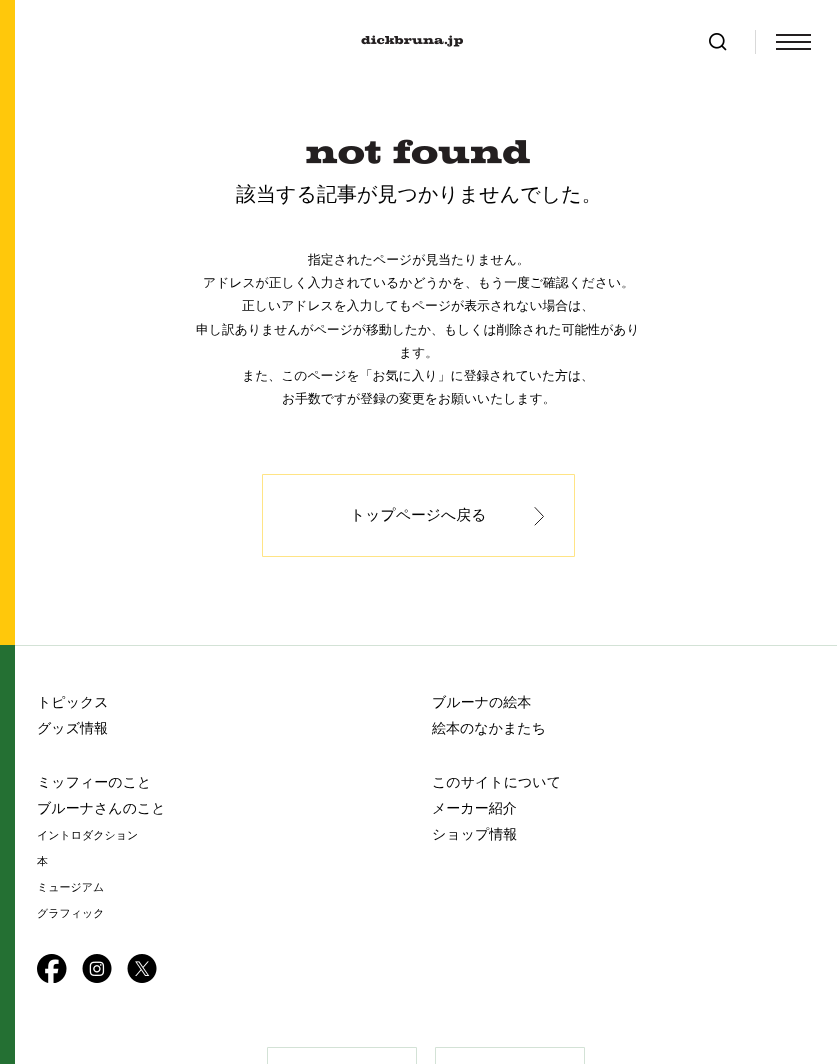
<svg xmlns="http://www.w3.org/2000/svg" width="837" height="1064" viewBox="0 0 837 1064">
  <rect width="100%" height="100%" fill="#fff"/>
  <path d="M15 645h822v1H15z" fill="#d3e2d6"/>
  <image x="361" y="35" width="102" height="12" href="img/1.png"/>
  <image x="709" y="33" width="18" height="18" href="img/2.png"/>
  <path d="M755 30h1v24H755z" fill="#d9d9d9"/>
  <path d="M776 34h35v2H776z" fill="#231f20"/>
  <path d="M776 41h35v2H776z" fill="#231f20"/>
  <path d="M776 48h35v2H776z" fill="#231f20"/>
  <path d="M0 0h15v645H0z" fill="#ffc80b"/>
  <image x="306" y="139" width="224" height="25" href="img/3.png"/>
  <path d="M262.5 474.5h312v82H262.5z" fill="none" stroke="#ffe485"/>
  <path d="M535 507.5L543.5 516.5L535 525" fill="none" stroke="#231f20" stroke-linecap="round" stroke-linejoin="round"/>
  <path d="M0 645h15v419H0z" fill="#247033"/>
  <image x="37" y="954" width="30" height="29" href="img/4.png"/>
  <image x="82" y="954" width="30" height="29" href="img/5.png"/>
  <image x="127" y="954" width="30" height="29" href="img/6.png"/>
  <path d="M267.5 1047.5h149v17H267.5z" fill="none" stroke="#d3e2d6"/>
  <path d="M435.5 1047.5h149v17H435.5z" fill="none" stroke="#d3e2d6"/>
  <text x="236" y="201" font-family="WenQuanYi Zen Hei" font-size="20" font-weight="500" fill="#000">該当する記事が見つかりませんでした。</text>
  <g font-family="WenQuanYi Zen Hei" font-size="12.85" font-weight="500" fill="#000">
    <text x="308" y="264">指定されたページが見当たりません。</text>
    <text x="203" y="287">アドレスが正しく入力されているかどうかを、もう一度ご確認ください。</text>
    <text x="242" y="310">正しいアドレスを入力してもページが表示されない場合は、</text>
    <text x="196" y="334">申し訳ありませんがページが移動したか、もしくは削除された可能性があり</text>
    <text x="399" y="357">ます。</text>
    <text x="242" y="380">また、このページを「お気に入り」に登録されていた方は、</text>
    <text x="282" y="403">お手数ですが登録の変更をお願いいたします。</text>
  </g>
  <text x="350" y="520" font-family="WenQuanYi Zen Hei" font-size="14.9" font-weight="500" fill="#000">トップページへ戻る</text>
  <g font-family="WenQuanYi Zen Hei" font-size="14" font-weight="500" fill="#000">
    <text x="37" y="707">トピックス</text>
    <text x="37" y="733">グッズ情報</text>
    <text x="37" y="787">ミッフィーのこと</text>
    <text x="37" y="813">ブルーナさんのこと</text>
  </g>
  <g font-family="WenQuanYi Zen Hei" font-size="11" font-weight="500" fill="#000">
    <text x="37" y="839">イントロダクション</text>
    <text x="37" y="865">本</text>
    <text x="37" y="891">ミュージアム</text>
    <text x="37" y="917">グラフィック</text>
  </g>
  <g font-family="WenQuanYi Zen Hei" font-size="14" font-weight="500" fill="#000">
    <text x="432" y="707">ブルーナの絵本</text>
    <text x="432" y="733">絵本のなかまたち</text>
    <text x="432" y="787">このサイトについて</text>
    <text x="432" y="813">メーカー紹介</text>
    <text x="432" y="839">ショップ情報</text>
  </g>
</svg>
